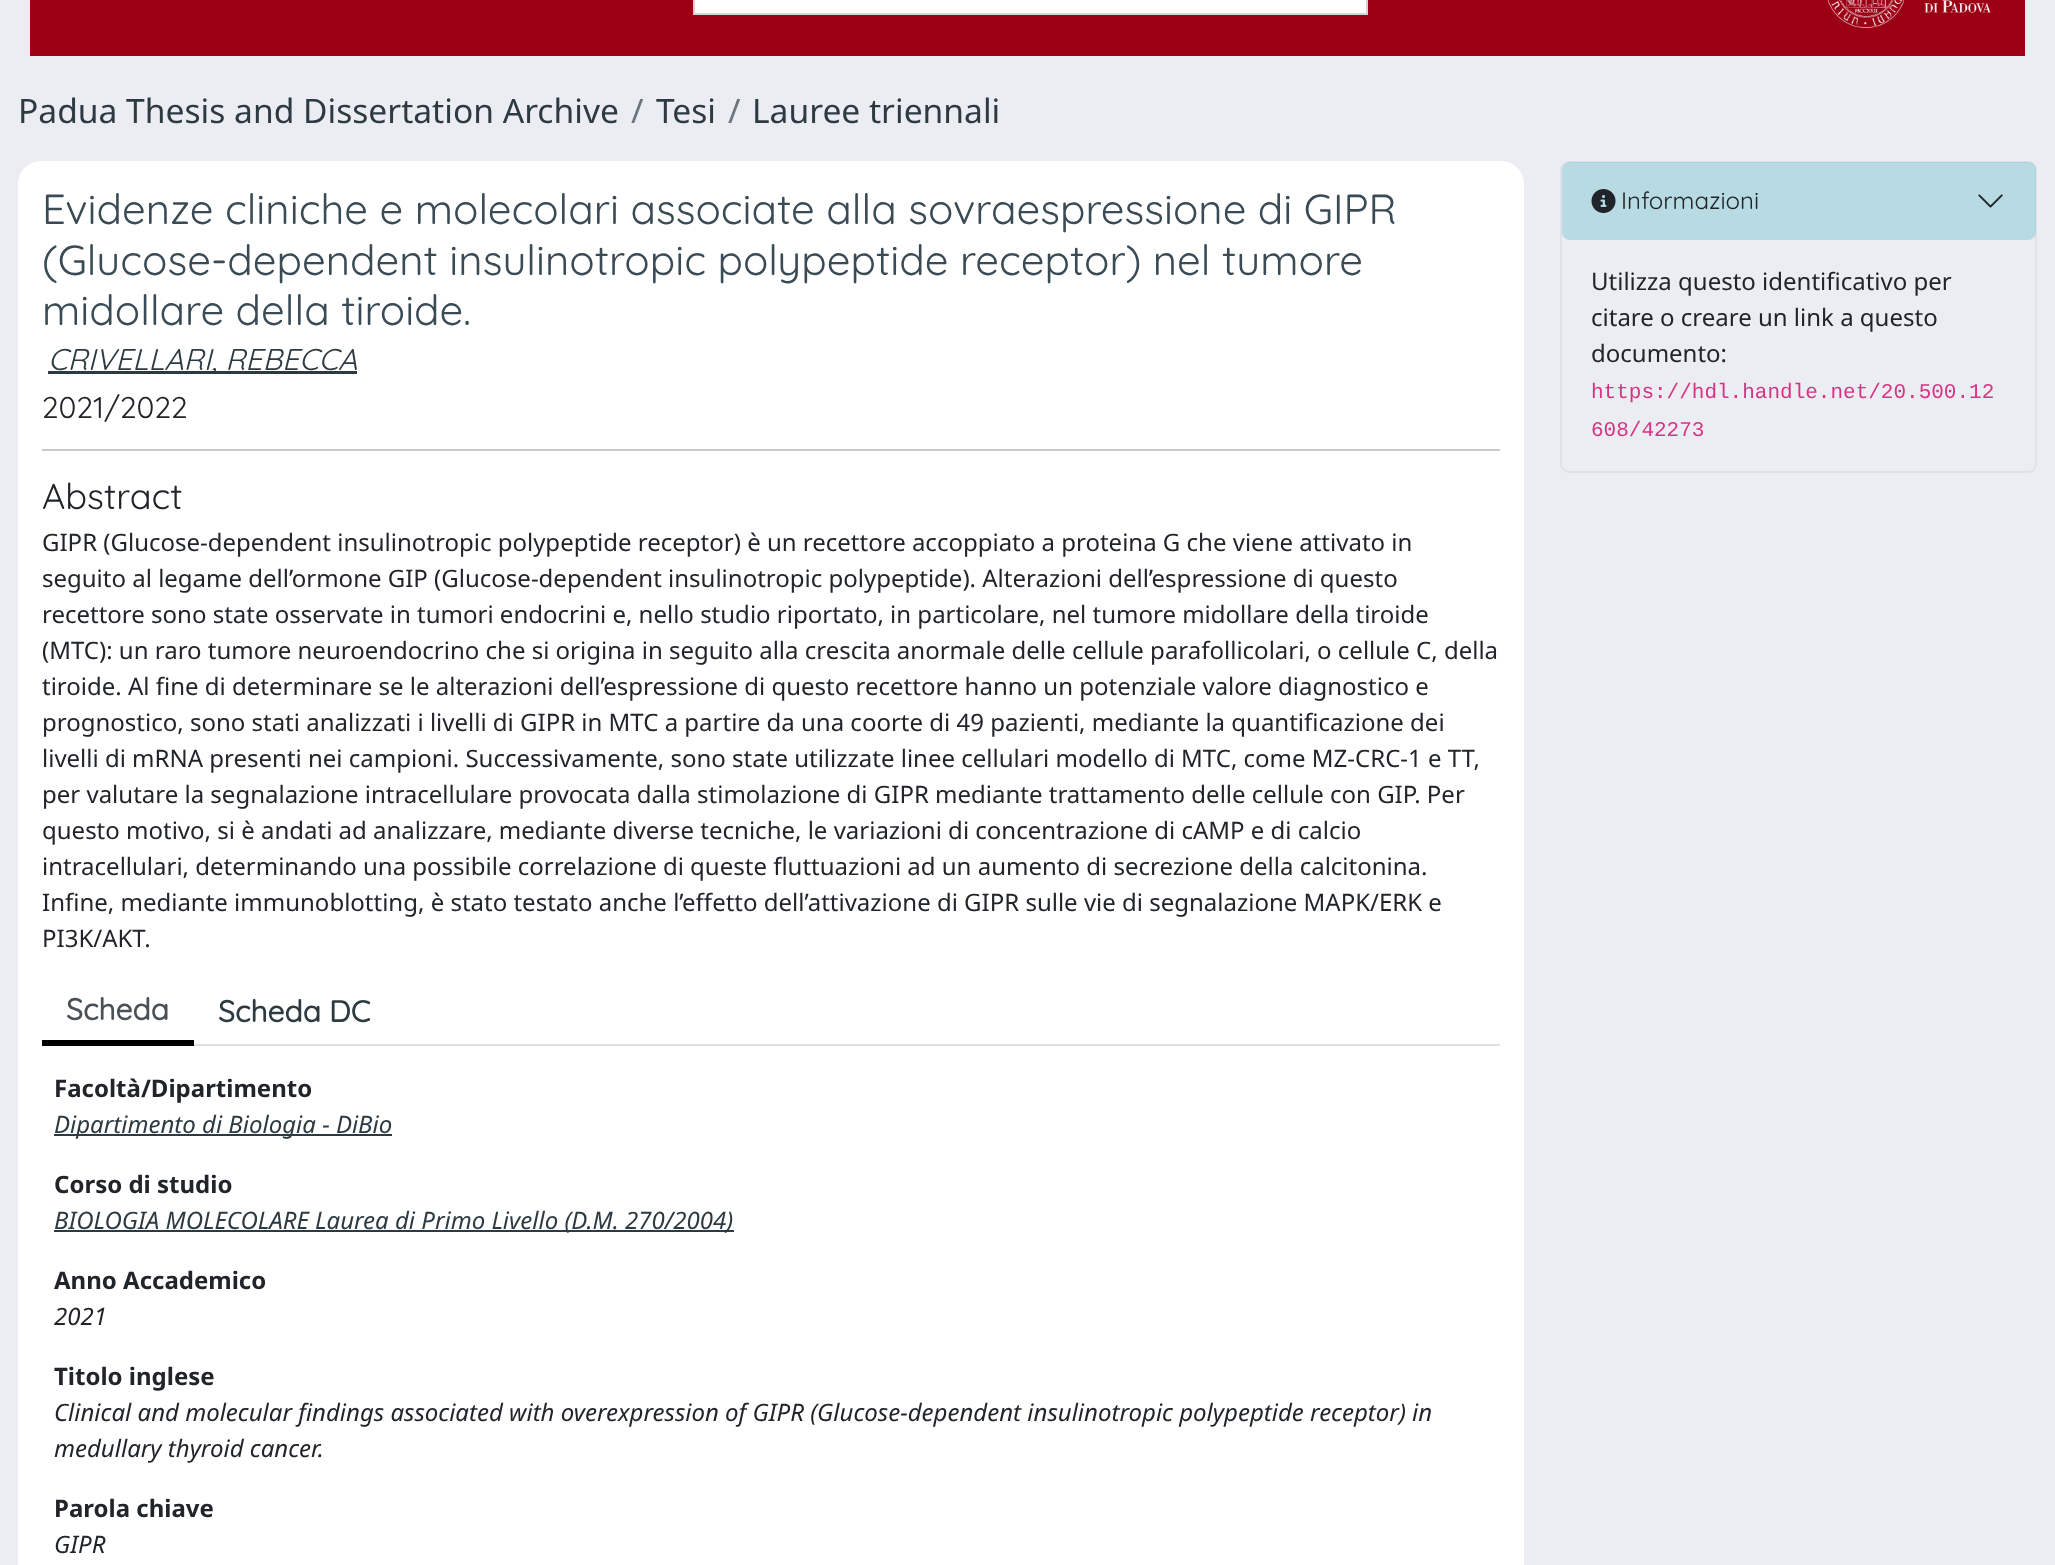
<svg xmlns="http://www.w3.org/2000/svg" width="2055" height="1565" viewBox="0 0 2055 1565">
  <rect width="100%" height="100%" fill="#ecedf2"/>
  <path d="M30 0h1995v56H30z" fill="#9b0014"/>
  <path d="M694 -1h673v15H694z" fill="#fff" stroke="#ced4da" stroke-width="2"/>
  <image x="1827" y="0" width="164" height="28" href="img/1.png"/>
  <rect x="18" y="161" width="1506" height="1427" rx="23" fill="#fff"/>
  <path d="M48 371h309v3H48z" fill="#2d3a42"/>
  <path d="M42 449h1458v2H42z" fill="#c8c9ca"/>
  <path d="M194 1044h1306v2H194z" fill="#dee2e6"/>
  <path d="M42 1040h152v6H42z" fill="#000"/>
  <path d="M54 1134h338v2H54z" fill="#2d3a42"/>
  <path d="M54 1230h680v2H54z" fill="#2d3a42"/>
  <rect x="1561" y="162" width="475" height="310" rx="8" fill="none" stroke="#dee2e6" stroke-width="2"/>
  <rect x="1562" y="162" width="474" height="78" rx="8" fill="#17a2b840"/>
  <image x="1591" y="189" width="25" height="24" href="img/2.png"/>
  <image x="1978" y="194" width="25" height="14" href="img/3.png"/>
  <text x="18" y="123" font-family="Noto Sans" font-size="33.6" fill="#2d3a42">Padua Thesis and Dissertation Archive</text>
  <text x="631" y="123" font-family="Noto Sans" font-size="33.6" fill="#6c757d">/</text>
  <text x="656" y="123" font-family="Noto Sans" font-size="33.6" fill="#2d3a42">Tesi</text>
  <text x="728" y="123" font-family="Noto Sans" font-size="33.6" fill="#6c757d">/</text>
  <text x="752" y="123" font-family="Noto Sans" font-size="33.6" fill="#2d3a42">Lauree triennali</text>
  <g font-family="Quicksand" font-size="42" fill="#3a4b55">
    <text x="42" y="224">Evidenze cliniche e molecolari associate alla sovraespressione di GIPR</text>
    <text x="42" y="275">(Glucose-dependent insulinotropic polypeptide receptor) nel tumore</text>
    <text x="42" y="325">midollare della tiroide.</text>
  </g>
  <text x="48" y="370" font-family="Quicksand" font-size="30" font-style="italic" fill="#2d3a42">CRIVELLARI, REBECCA</text>
  <text x="42" y="418" font-family="Quicksand" font-size="30" fill="#212529">2021/2022</text>
  <text x="42" y="509" font-family="Quicksand" font-size="36" fill="#212529">Abstract</text>
  <g font-family="Noto Sans" font-size="24" fill="#212529">
    <text x="42" y="551">GIPR (Glucose-dependent insulinotropic polypeptide receptor) è un recettore accoppiato a proteina G che viene attivato in</text>
    <text x="42" y="587">seguito al legame dell’ormone GIP (Glucose-dependent insulinotropic polypeptide). Alterazioni dell’espressione di questo</text>
    <text x="42" y="623">recettore sono state osservate in tumori endocrini e, nello studio riportato, in particolare, nel tumore midollare della tiroide</text>
    <text x="42" y="659">(MTC): un raro tumore neuroendocrino che si origina in seguito alla crescita anormale delle cellule parafollicolari, o cellule C, della</text>
    <text x="42" y="695">tiroide. Al fine di determinare se le alterazioni dell’espressione di questo recettore hanno un potenziale valore diagnostico e</text>
    <text x="42" y="731">prognostico, sono stati analizzati i livelli di GIPR in MTC a partire da una coorte di 49 pazienti, mediante la quantificazione dei</text>
    <text x="42" y="767">livelli di mRNA presenti nei campioni. Successivamente, sono state utilizzate linee cellulari modello di MTC, come MZ-CRC-1 e TT,</text>
    <text x="42" y="803">per valutare la segnalazione intracellulare provocata dalla stimolazione di GIPR mediante trattamento delle cellule con GIP. Per</text>
    <text x="42" y="839">questo motivo, si è andati ad analizzare, mediante diverse tecniche, le variazioni di concentrazione di cAMP e di calcio</text>
    <text x="42" y="875">intracellulari, determinando una possibile correlazione di queste fluttuazioni ad un aumento di secrezione della calcitonina.</text>
    <text x="42" y="911">Infine, mediante immunoblotting, è stato testato anche l’effetto dell’attivazione di GIPR sulle vie di segnalazione MAPK/ERK e</text>
    <text x="42" y="947">PI3K/AKT.</text>
  </g>
  <text x="66" y="1020" font-family="Quicksand" font-size="30" font-weight="bold" fill="#495057">Scheda</text>
  <text x="218" y="1022" font-family="Quicksand" font-size="30" font-weight="bold" fill="#2d3a42">Scheda DC</text>
  <text x="54" y="1097" font-family="Noto Sans" font-size="24" font-weight="bold" fill="#212529">Facoltà/Dipartimento</text>
  <text x="54" y="1133" font-family="Noto Sans" font-size="24" font-style="italic" fill="#2d3a42">Dipartimento di Biologia - DiBio</text>
  <text x="54" y="1193" font-family="Noto Sans" font-size="24" font-weight="bold" fill="#212529">Corso di studio</text>
  <text x="54" y="1229" font-family="Noto Sans" font-size="24" font-style="italic" fill="#2d3a42">BIOLOGIA MOLECOLARE Laurea di Primo Livello (D.M. 270/2004)</text>
  <text x="54" y="1289" font-family="Noto Sans" font-size="24" font-weight="bold" fill="#212529">Anno Accademico</text>
  <text x="54" y="1325" font-family="Noto Sans" font-size="24" font-style="italic" fill="#212529">2021</text>
  <text x="54" y="1385" font-family="Noto Sans" font-size="24" font-weight="bold" fill="#212529">Titolo inglese</text>
  <g font-family="Noto Sans" font-size="24" font-style="italic" fill="#212529">
    <text x="54" y="1421">Clinical and molecular findings associated with overexpression of GIPR (Glucose-dependent insulinotropic polypeptide receptor) in</text>
    <text x="54" y="1457">medullary thyroid cancer.</text>
  </g>
  <text x="54" y="1517" font-family="Noto Sans" font-size="24" font-weight="bold" fill="#212529">Parola chiave</text>
  <text x="54" y="1553" font-family="Noto Sans" font-size="24" font-style="italic" fill="#212529">GIPR</text>
  <text x="1621" y="209" font-family="Quicksand" font-size="24" fill="#212529">Informazioni</text>
  <g font-family="Noto Sans" font-size="24" fill="#212529">
    <text x="1591" y="290">Utilizza questo identificativo per</text>
    <text x="1591" y="326">citare o creare un link a questo</text>
    <text x="1591" y="362">documento:</text>
  </g>
  <g font-family="Liberation Mono" font-size="21" fill="#d63384">
    <text x="1591" y="398">https://hdl.handle.net/20.500.12</text>
    <text x="1591" y="436">608/42273</text>
  </g>
</svg>
